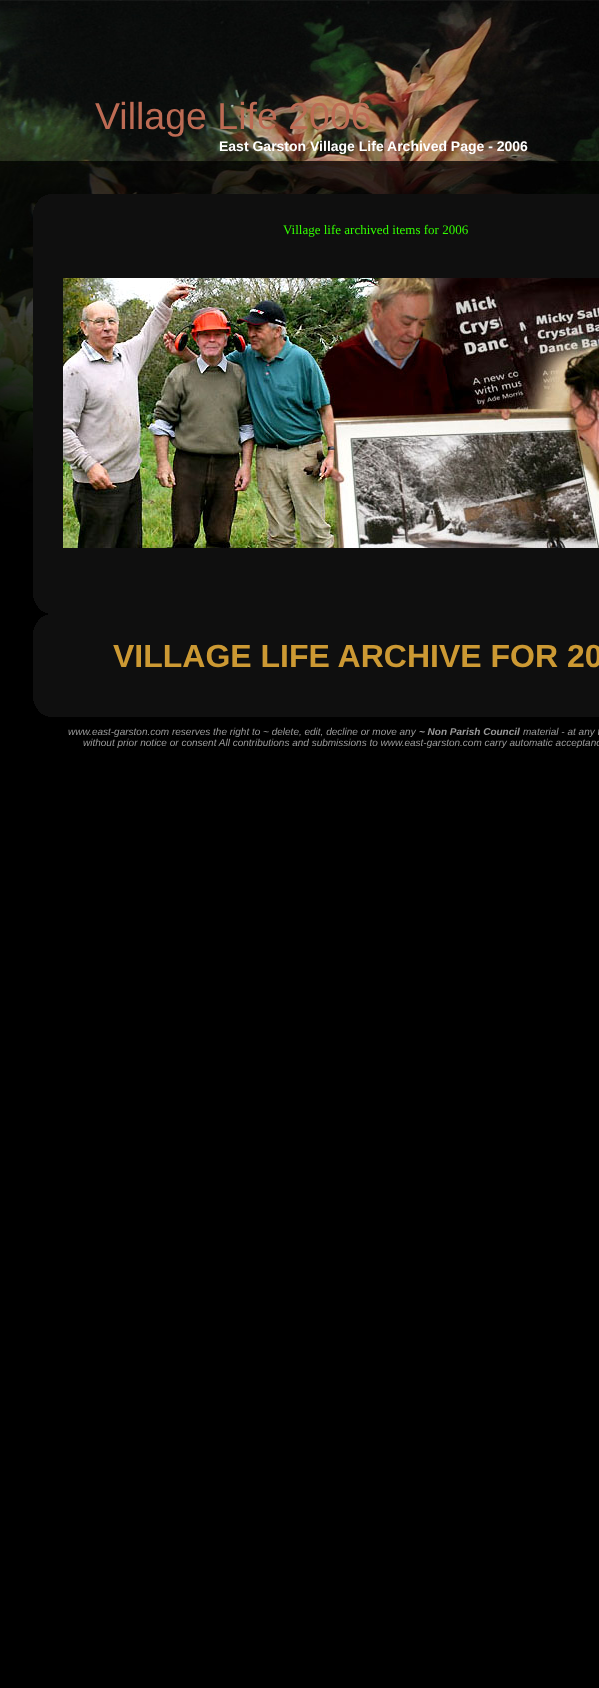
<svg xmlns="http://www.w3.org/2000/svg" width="599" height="1688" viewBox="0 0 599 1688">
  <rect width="100%" height="100%" fill="#000"/>
  <image x="0" y="0" width="599" height="519" href="img/1.png"/>
  <image x="33" y="194" width="566" height="24" href="img/2.png"/>
  <path d="M33 218h566v372H33z" fill="#0f0f0f"/>
  <image x="63" y="278" width="536" height="270" href="img/3.png"/>
  <image x="33" y="590" width="566" height="24" href="img/4.png"/>
  <image x="33" y="614" width="566" height="24" href="img/5.png"/>
  <path d="M33 638h566v55H33z" fill="#0f0f0f"/>
  <image x="33" y="693" width="566" height="24" href="img/4.png"/>
  <text x="95" y="129" font-family="Liberation Sans" font-size="37.5" fill="#bd6b54">Village Life 2006</text>
  <text x="219" y="151" font-family="Liberation Sans" font-size="14" font-weight="bold" fill="#fff">East Garston Village Life Archived Page - 2006</text>
  <text x="283" y="234" font-family="Liberation Serif" font-size="13" fill="#3f0">Village life archived items for 2006</text>
  <text x="113" y="667" font-family="Liberation Sans" font-size="32" font-weight="bold" fill="#c93">VILLAGE LIFE ARCHIVE FOR 20</text>
  <text x="68" y="735" font-family="Liberation Sans" font-size="10" font-style="italic" fill="#999">www.east-garston.com reserves the right to ~ delete, edit, decline or move any</text>
  <text x="419" y="735" font-family="Liberation Sans" font-size="10" font-weight="bold" font-style="italic" fill="#999">~ Non Parish Council</text>
  <g font-family="Liberation Sans" font-size="10" font-style="italic" fill="#999">
    <text x="523" y="735">material - at any t</text>
    <text x="83" y="746">without prior notice or consent All contributions and submissions to www.east-garston.com carry automatic acceptanc</text>
  </g>
</svg>
